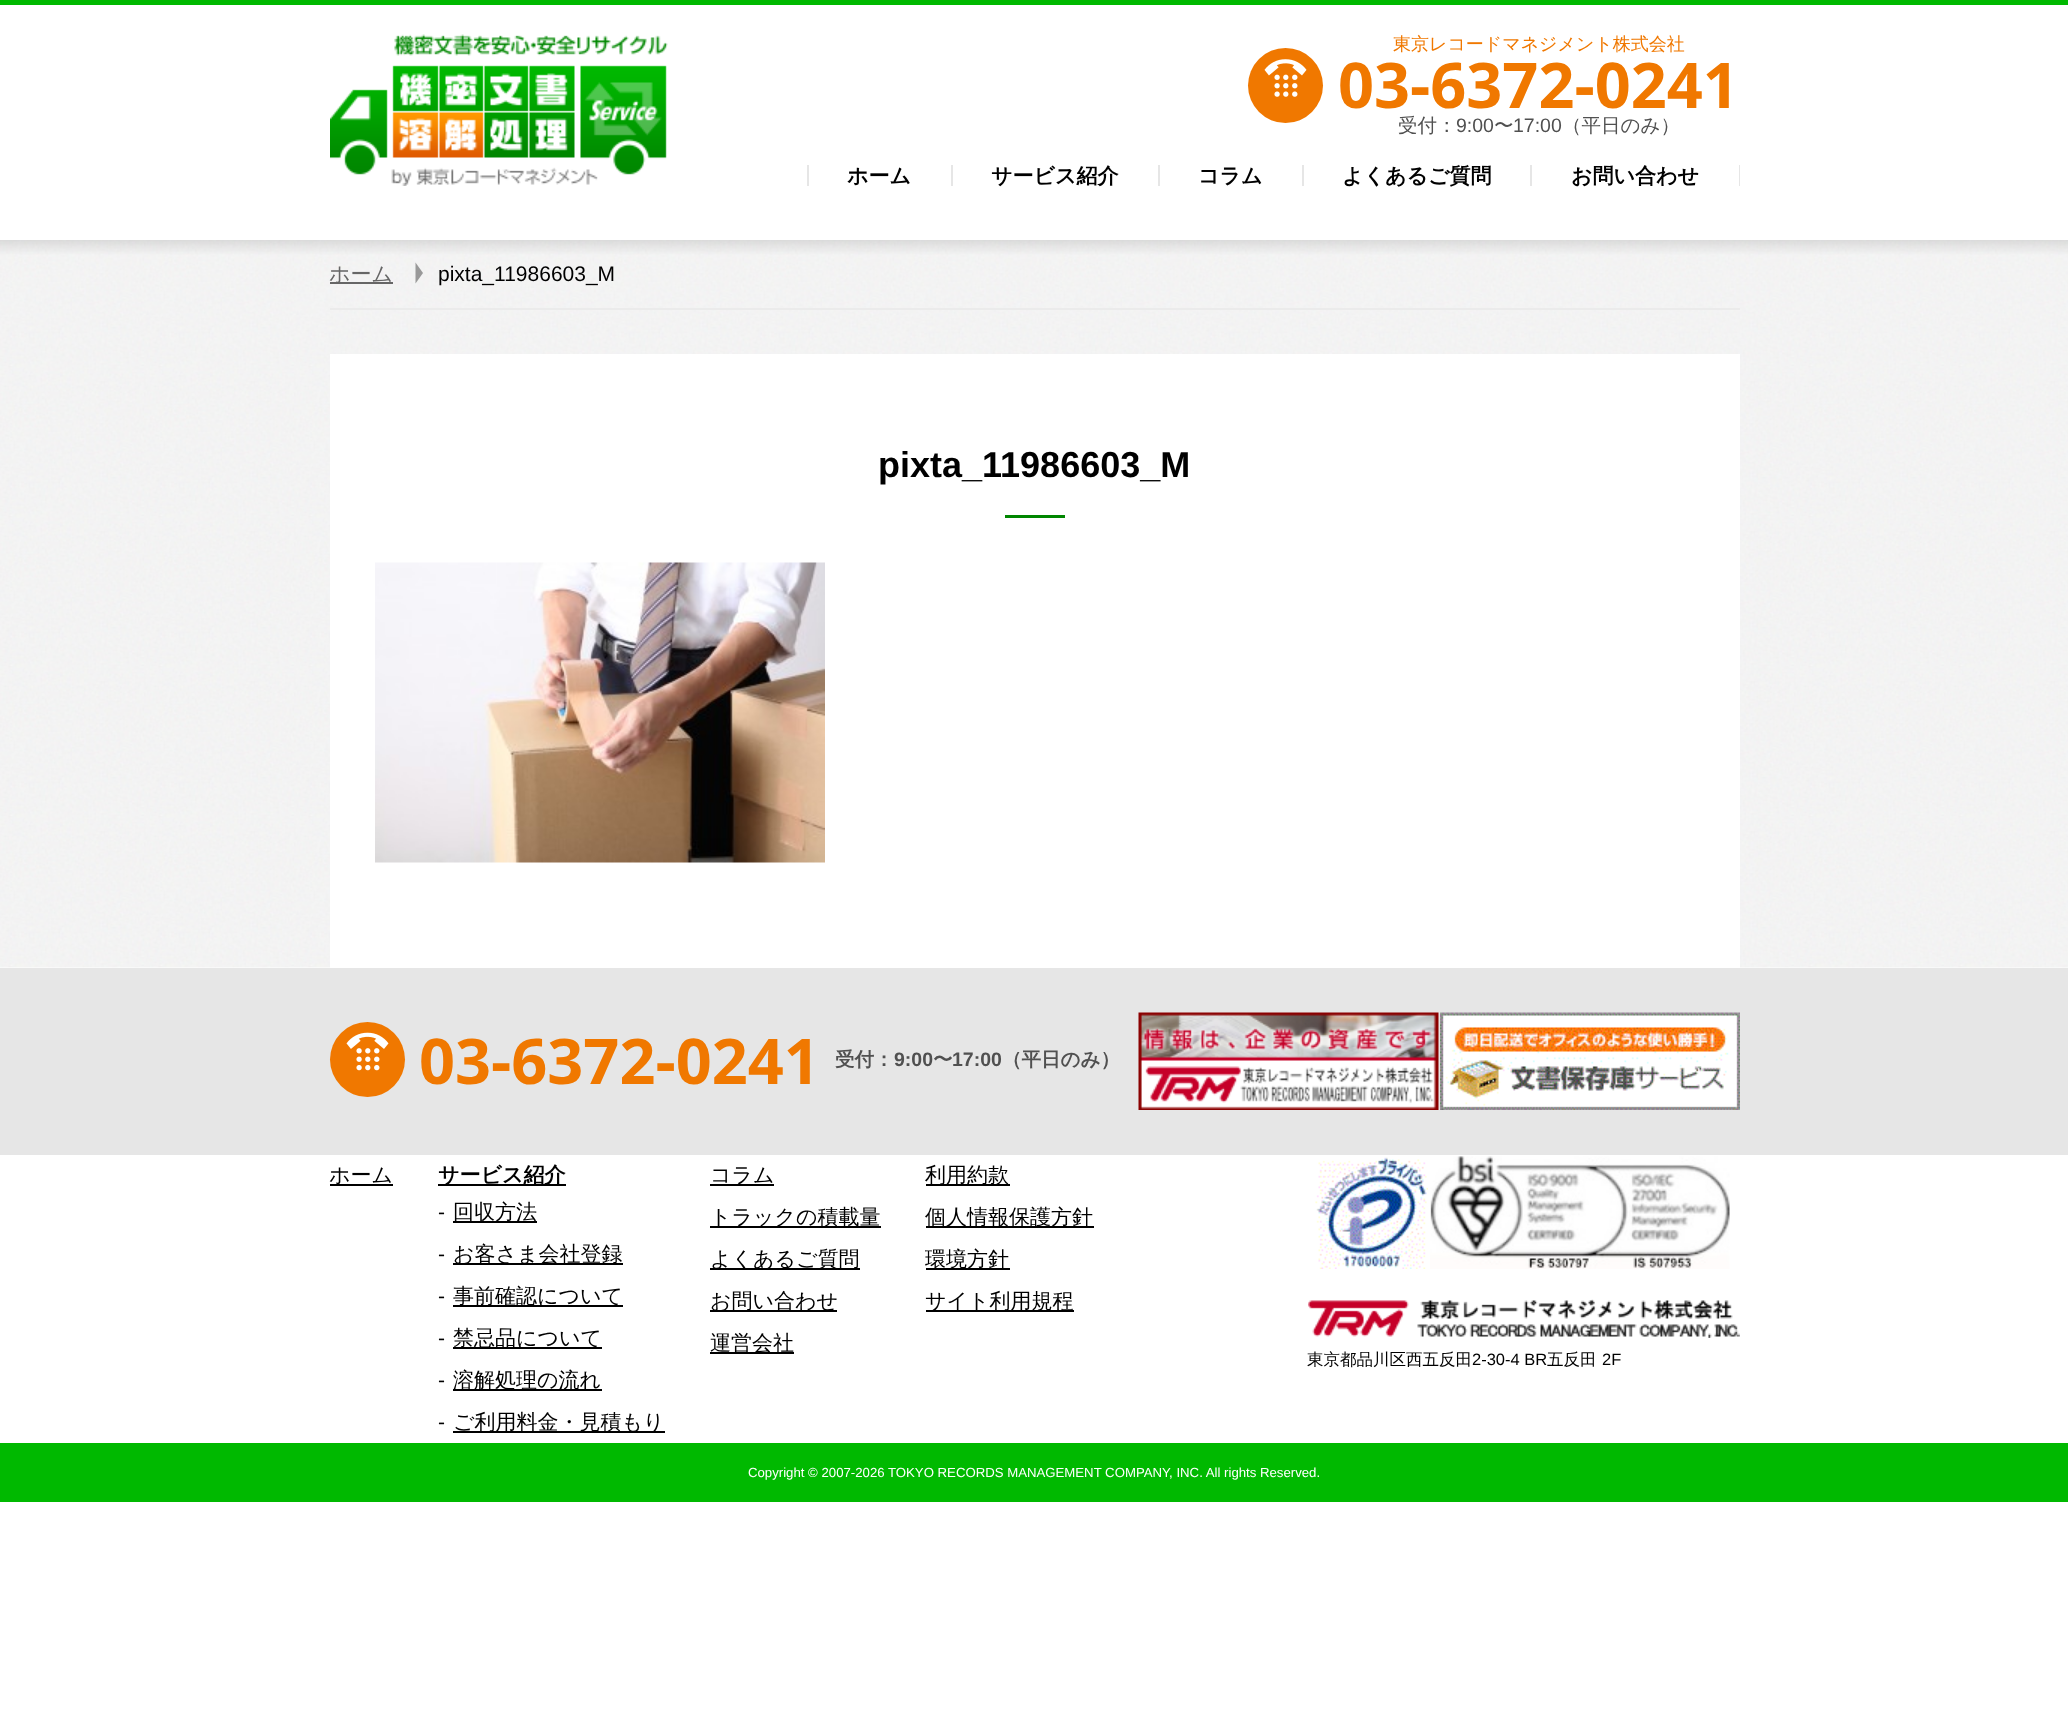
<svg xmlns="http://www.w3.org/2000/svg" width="2068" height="1735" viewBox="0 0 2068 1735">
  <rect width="100%" height="100%" fill="#fff"/>
  <path d="M0 0h2068v5H0z" fill="#00b900"/>
  <image x="330" y="34" width="338" height="152" href="img/1.png"/>
  <circle cx="1285.5" cy="85.5" r="37.5" fill="#f07800"/>
  <image x="1264" y="59" width="43" height="38" href="img/2.png"/>
  <path d="M951 165h2v21H951z" fill="#e6e6e6"/>
  <path d="M807 165h2v21H807z" fill="#e6e6e6"/>
  <path d="M1158 165h2v21H1158z" fill="#e6e6e6"/>
  <path d="M1302 165h2v21H1302z" fill="#e6e6e6"/>
  <path d="M1530 165h2v21H1530z" fill="#e6e6e6"/>
  <path d="M1739 165h1v21H1739z" fill="#e6e6e6"/>
  <image x="0" y="240" width="2068" height="728" href="img/3.png"/>
  <path d="M330 308h1410v2H330z" fill="#ebebeb"/>
  <path d="M330 282h63v2H330z" fill="#666"/>
  <path d="M415.5 283.5V262.5L423 273Z" fill="#999"/>
  <path d="M330 354h1410v614H330z" fill="#fff"/>
  <path d="M1005 515h60v3H1005z" fill="#008600"/>
  <image x="375" y="562" width="450" height="301" href="img/4.png"/>
  <path d="M0 968h2068v187H0z" fill="#e6e6e6"/>
  <circle cx="367.5" cy="1059.5" r="37.5" fill="#f07800"/>
  <image x="346" y="1032" width="43" height="39" href="img/5.png"/>
  <image x="1138" y="1012" width="301" height="98" href="img/6.png"/>
  <image x="1440" y="1012" width="300" height="98" href="img/7.png"/>
  <path d="M330 1184h63v2H330z" fill="#000"/>
  <path d="M438 1184h128v2H438z" fill="#000"/>
  <path d="M453 1221h84v2H453z" fill="#000"/>
  <path d="M453 1263h170v2H453z" fill="#000"/>
  <path d="M453 1305h170v2H453z" fill="#000"/>
  <path d="M453 1347h149v2H453z" fill="#000"/>
  <path d="M453 1389h149v2H453z" fill="#000"/>
  <path d="M453 1431h212v2H453z" fill="#000"/>
  <path d="M710 1184h64v2H710z" fill="#000"/>
  <path d="M710 1226h171v2H710z" fill="#000"/>
  <path d="M710 1268h150v2H710z" fill="#000"/>
  <path d="M710 1310h127v2H710z" fill="#000"/>
  <path d="M710 1352h84v2H710z" fill="#000"/>
  <path d="M926 1184h84v2H926z" fill="#000"/>
  <path d="M926 1226h168v2H926z" fill="#000"/>
  <path d="M926 1268h84v2H926z" fill="#000"/>
  <path d="M926 1310h148v2H926z" fill="#000"/>
  <image x="1315" y="1157" width="113" height="112" href="img/8.png"/>
  <image x="1430" y="1156" width="300" height="113" href="img/9.png"/>
  <image x="1308" y="1299" width="432" height="39" href="img/10.png"/>
  <path d="M0 1443h2068v59H0z" fill="#00b900"/>
  <text x="1393" y="50" font-family="WenQuanYi Zen Hei" font-size="18" font-weight="500" fill="#f07800">東京レコードマネジメント株式会社</text>
  <text x="1338" y="108" font-family="Open Sans" font-size="63" font-weight="bold" fill="#f07800">03-6372-0241</text>
  <text x="1398" y="132" font-family="WenQuanYi Zen Hei" font-size="19.5" font-weight="500" fill="#505050">受付：</text>
  <text x="1456" y="132" font-family="Liberation Sans" font-size="19.5" fill="#505050">9:00</text>
  <text x="1494" y="132" font-family="WenQuanYi Zen Hei" font-size="19.5" font-weight="500" fill="#505050">〜</text>
  <text x="1513" y="132" font-family="Liberation Sans" font-size="19.5" fill="#505050">17:00</text>
  <text x="1562" y="132" font-family="WenQuanYi Zen Hei" font-size="19.5" font-weight="500" fill="#505050">（平日のみ）</text>
  <g font-family="WenQuanYi Zen Hei" font-size="21" font-weight="bold" fill="#000">
    <text x="847" y="183">ホーム</text>
    <text x="991" y="183">サービス紹介</text>
    <text x="1198" y="183">コラム</text>
    <text x="1342" y="183">よくあるご質問</text>
    <text x="1571" y="183">お問い合わせ</text>
  </g>
  <text x="329" y="281" font-family="WenQuanYi Zen Hei" font-size="21" font-weight="500" fill="#666">ホーム</text>
  <text x="438" y="281" font-family="Liberation Sans" font-size="21" fill="#000">pixta_11986603_M</text>
  <text x="878" y="477" font-family="Liberation Sans" font-size="36" font-weight="bold" fill="#000">pixta_11986603_M</text>
  <text x="419" y="1084" font-family="Open Sans" font-size="63" font-weight="bold" fill="#f07800">03-6372-0241</text>
  <text x="835" y="1066" font-family="WenQuanYi Zen Hei" font-size="19.5" font-weight="bold" fill="#505050">受付：</text>
  <text x="894" y="1066" font-family="Liberation Sans" font-size="19.5" font-weight="bold" fill="#505050">9:00</text>
  <text x="933" y="1066" font-family="WenQuanYi Zen Hei" font-size="19.5" font-weight="bold" fill="#505050">〜</text>
  <text x="952" y="1066" font-family="Liberation Sans" font-size="19.5" font-weight="bold" fill="#505050">17:00</text>
  <text x="1002" y="1066" font-family="WenQuanYi Zen Hei" font-size="19.5" font-weight="bold" fill="#505050">（平日のみ）</text>
  <text x="329" y="1182" font-family="WenQuanYi Zen Hei" font-size="21" font-weight="500" fill="#000">ホーム</text>
  <text x="438" y="1182" font-family="WenQuanYi Zen Hei" font-size="21" font-weight="bold" fill="#000">サービス紹介</text>
  <text x="438" y="1219" font-family="Liberation Sans" font-size="21" fill="#000">-</text>
  <text x="453" y="1219" font-family="WenQuanYi Zen Hei" font-size="21" font-weight="500" fill="#000">回収方法</text>
  <text x="438" y="1261" font-family="Liberation Sans" font-size="21" fill="#000">-</text>
  <text x="453" y="1261" font-family="WenQuanYi Zen Hei" font-size="21" font-weight="500" fill="#000">お客さま会社登録</text>
  <text x="438" y="1303" font-family="Liberation Sans" font-size="21" fill="#000">-</text>
  <text x="453" y="1303" font-family="WenQuanYi Zen Hei" font-size="21" font-weight="500" fill="#000">事前確認について</text>
  <text x="438" y="1345" font-family="Liberation Sans" font-size="21" fill="#000">-</text>
  <text x="453" y="1345" font-family="WenQuanYi Zen Hei" font-size="21" font-weight="500" fill="#000">禁忌品について</text>
  <text x="438" y="1387" font-family="Liberation Sans" font-size="21" fill="#000">-</text>
  <text x="453" y="1387" font-family="WenQuanYi Zen Hei" font-size="21" font-weight="500" fill="#000">溶解処理の流れ</text>
  <text x="438" y="1429" font-family="Liberation Sans" font-size="21" fill="#000">-</text>
  <g font-family="WenQuanYi Zen Hei" font-size="21" font-weight="500" fill="#000">
    <text x="453" y="1429">ご利用料金・見積もり</text>
    <text x="710" y="1182">コラム</text>
    <text x="710" y="1224">トラックの積載量</text>
    <text x="710" y="1266">よくあるご質問</text>
    <text x="710" y="1308">お問い合わせ</text>
    <text x="710" y="1350">運営会社</text>
    <text x="925" y="1182">利用約款</text>
    <text x="925" y="1224">個人情報保護方針</text>
    <text x="925" y="1266">環境方針</text>
    <text x="925" y="1308">サイト利用規程</text>
  </g>
  <text x="1307" y="1365" font-family="WenQuanYi Zen Hei" font-size="16.5" font-weight="500" fill="#000">東京都品川区西五反田</text>
  <text x="1472" y="1365" font-family="Liberation Sans" font-size="16.5" fill="#000">2-30-4 BR</text>
  <text x="1547" y="1365" font-family="WenQuanYi Zen Hei" font-size="16.5" font-weight="500" fill="#000">五反田</text>
  <text x="1602" y="1365" font-family="Liberation Sans" font-size="16.5" fill="#000">2F</text>
  <text x="748" y="1477" font-family="Liberation Sans" font-size="13.2" fill="#fff">Copyright © 2007-2026 TOKYO RECORDS MANAGEMENT COMPANY, INC. All rights Reserved.</text>
</svg>
